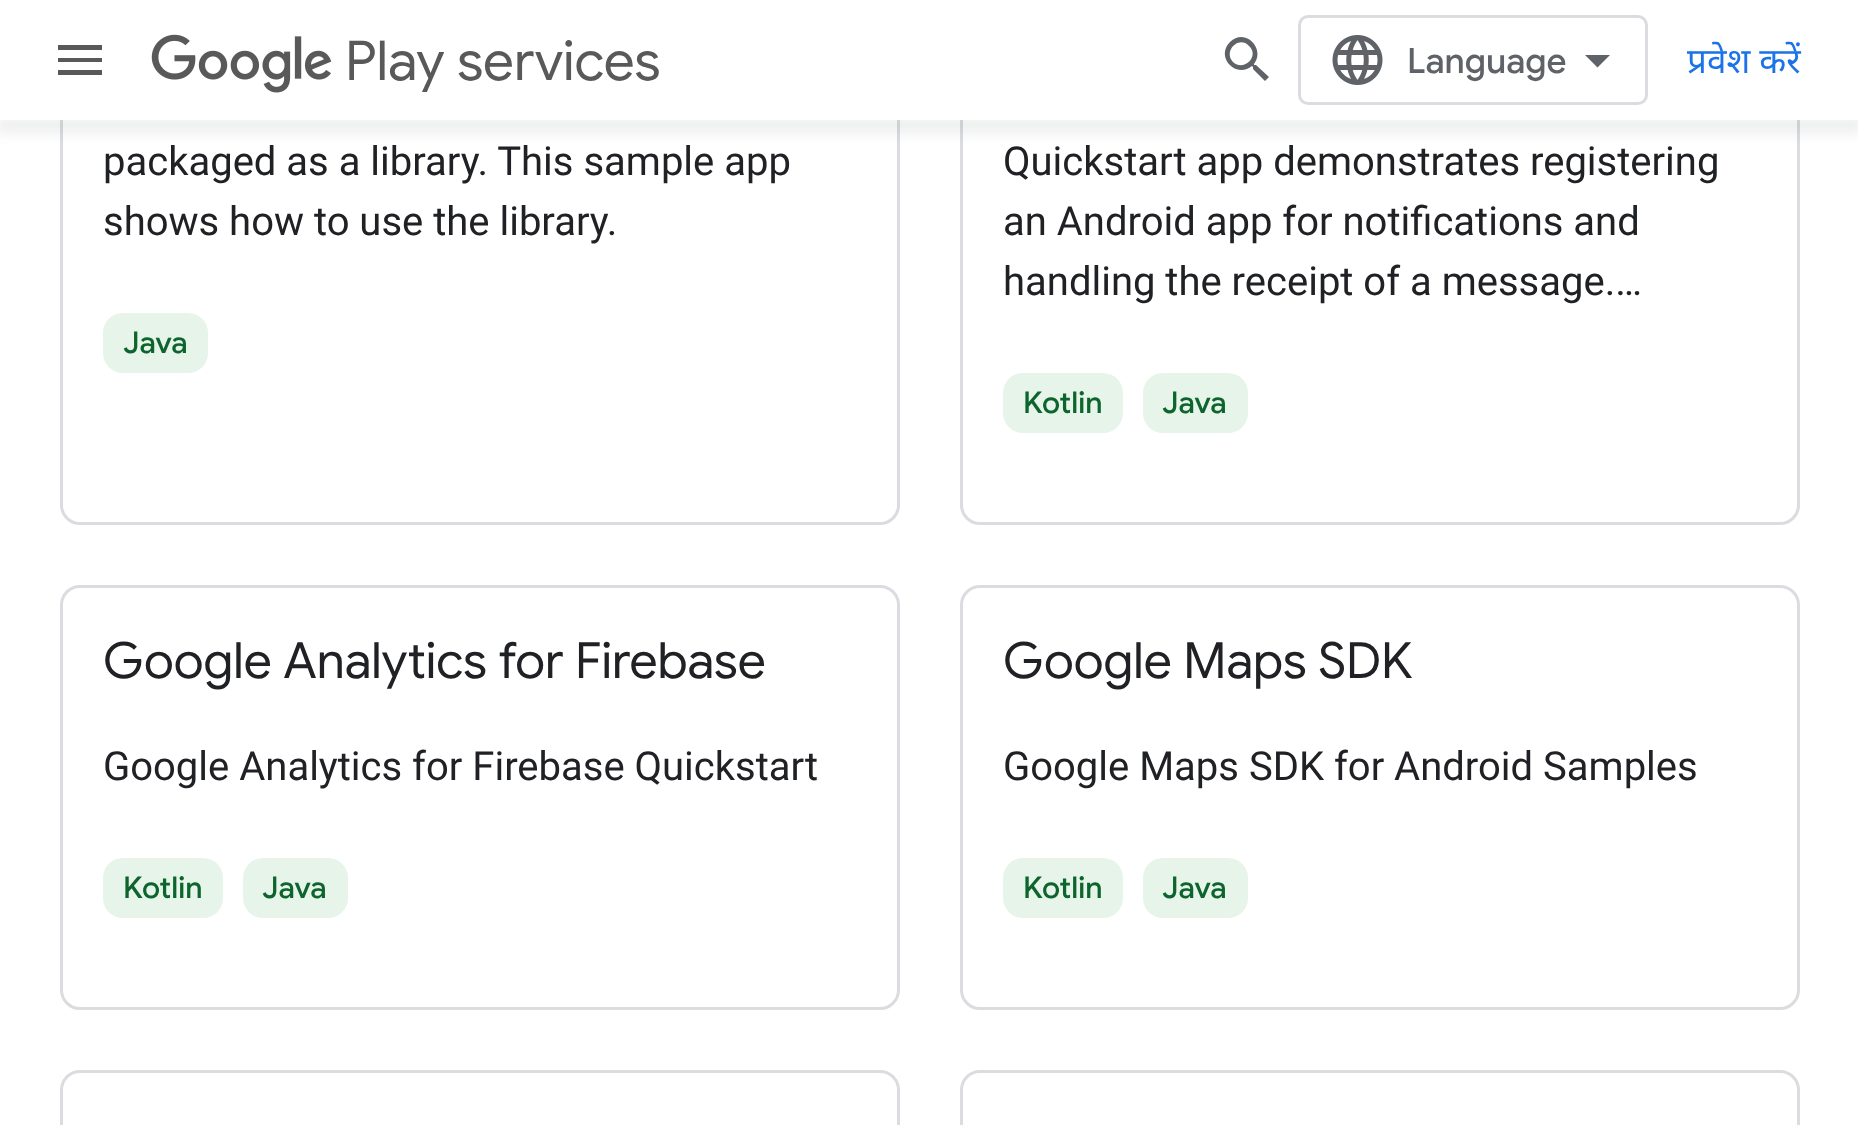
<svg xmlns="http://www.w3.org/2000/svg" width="1858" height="1125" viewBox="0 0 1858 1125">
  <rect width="100%" height="100%" fill="#fff"/>
  <rect x="61.5" y="-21.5" width="837" height="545" rx="18.5" fill="none" stroke="#dadce0" stroke-width="3"/>
  <rect x="961.5" y="-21.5" width="837" height="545" rx="18.5" fill="none" stroke="#dadce0" stroke-width="3"/>
  <path d="M-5 120h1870v10H-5z" fill="#3c404326" filter="blur(7.5px)"/>
  <path d="M0 0h1858v120H0z" fill="#fff"/>
  <path d="M58 45H102V50H58ZM58 62V58H102V62ZM58 75V70H102V75Z" fill="#595959"/>
  <image x="151" y="34" width="181" height="59" href="img/1.png"/>
  <path d="M1233 62C1244 72 1260 56 1249 46C1239 35 1223 51 1233 62ZM1256 65L1269 77L1265 81L1253 69V67L1252 66C1236 79 1215 57 1230 42C1245 27 1266 49 1254 64V65Z" fill="#5f6368"/>
  <rect x="1299.5" y="16.5" width="347" height="87" rx="8.5" fill="none" stroke="#dadce0" stroke-width="3"/>
  <image x="1332" y="35" width="51" height="50" href="img/2.png"/>
  <path d="M1597.5 67.5L1585 55H1610Z" fill="#5f6368"/>
  <rect x="103" y="313" width="105" height="60" rx="20" fill="#e6f4ea"/>
  <rect x="1003" y="373" width="120" height="60" rx="20" fill="#e6f4ea"/>
  <rect x="1143" y="373" width="105" height="60" rx="20" fill="#e6f4ea"/>
  <rect x="61.5" y="586.5" width="837" height="422" rx="18.5" fill="none" stroke="#dadce0" stroke-width="3"/>
  <rect x="103" y="858" width="120" height="60" rx="20" fill="#e6f4ea"/>
  <rect x="243" y="858" width="105" height="60" rx="20" fill="#e6f4ea"/>
  <rect x="961.5" y="586.5" width="837" height="422" rx="18.5" fill="none" stroke="#dadce0" stroke-width="3"/>
  <rect x="1003" y="858" width="120" height="60" rx="20" fill="#e6f4ea"/>
  <rect x="1143" y="858" width="105" height="60" rx="20" fill="#e6f4ea"/>
  <rect x="61.5" y="1071.5" width="837" height="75" rx="18.5" fill="none" stroke="#dadce0" stroke-width="3"/>
  <rect x="961.5" y="1071.5" width="837" height="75" rx="18.5" fill="none" stroke="#dadce0" stroke-width="3"/>
  <text x="345" y="80" font-family="Google Sans" font-size="55" fill="#595959">Play services</text>
  <text x="1407" y="73" font-family="Google Sans" font-size="35" font-weight="500" fill="#5f6368">Language</text>
  <text x="1687" y="73" font-family="Noto Sans" font-size="35" fill="#1a73e8">प्रवेश करें</text>
  <g font-family="Roboto" font-size="40" fill="#202124">
    <text x="103" y="175">packaged as a library. This sample app</text>
    <text x="103" y="235">shows how to use the library.</text>
  </g>
  <text x="123" y="353" font-family="Google Sans" font-size="30" font-weight="500" fill="#0d652d">Java</text>
  <g font-family="Roboto" font-size="40" fill="#202124">
    <text x="1003" y="175">Quickstart app demonstrates registering</text>
    <text x="1003" y="235">an Android app for notifications and</text>
    <text x="1003" y="295">handling the receipt of a message.…</text>
  </g>
  <g font-family="Google Sans" font-size="30" font-weight="500" fill="#0d652d">
    <text x="1023" y="413">Kotlin</text>
    <text x="1162" y="413">Java</text>
  </g>
  <text x="103" y="678" font-family="Google Sans" font-size="50" fill="#202124">Google Analytics for Firebase</text>
  <text x="103" y="780" font-family="Roboto" font-size="40" fill="#202124">Google Analytics for Firebase Quickstart</text>
  <g font-family="Google Sans" font-size="30" font-weight="500" fill="#0d652d">
    <text x="123" y="898">Kotlin</text>
    <text x="262" y="898">Java</text>
  </g>
  <text x="1003" y="678" font-family="Google Sans" font-size="50" fill="#202124">Google Maps SDK</text>
  <text x="1003" y="780" font-family="Roboto" font-size="40" fill="#202124">Google Maps SDK for Android Samples</text>
  <g font-family="Google Sans" font-size="30" font-weight="500" fill="#0d652d">
    <text x="1023" y="898">Kotlin</text>
    <text x="1162" y="898">Java</text>
  </g>
</svg>
